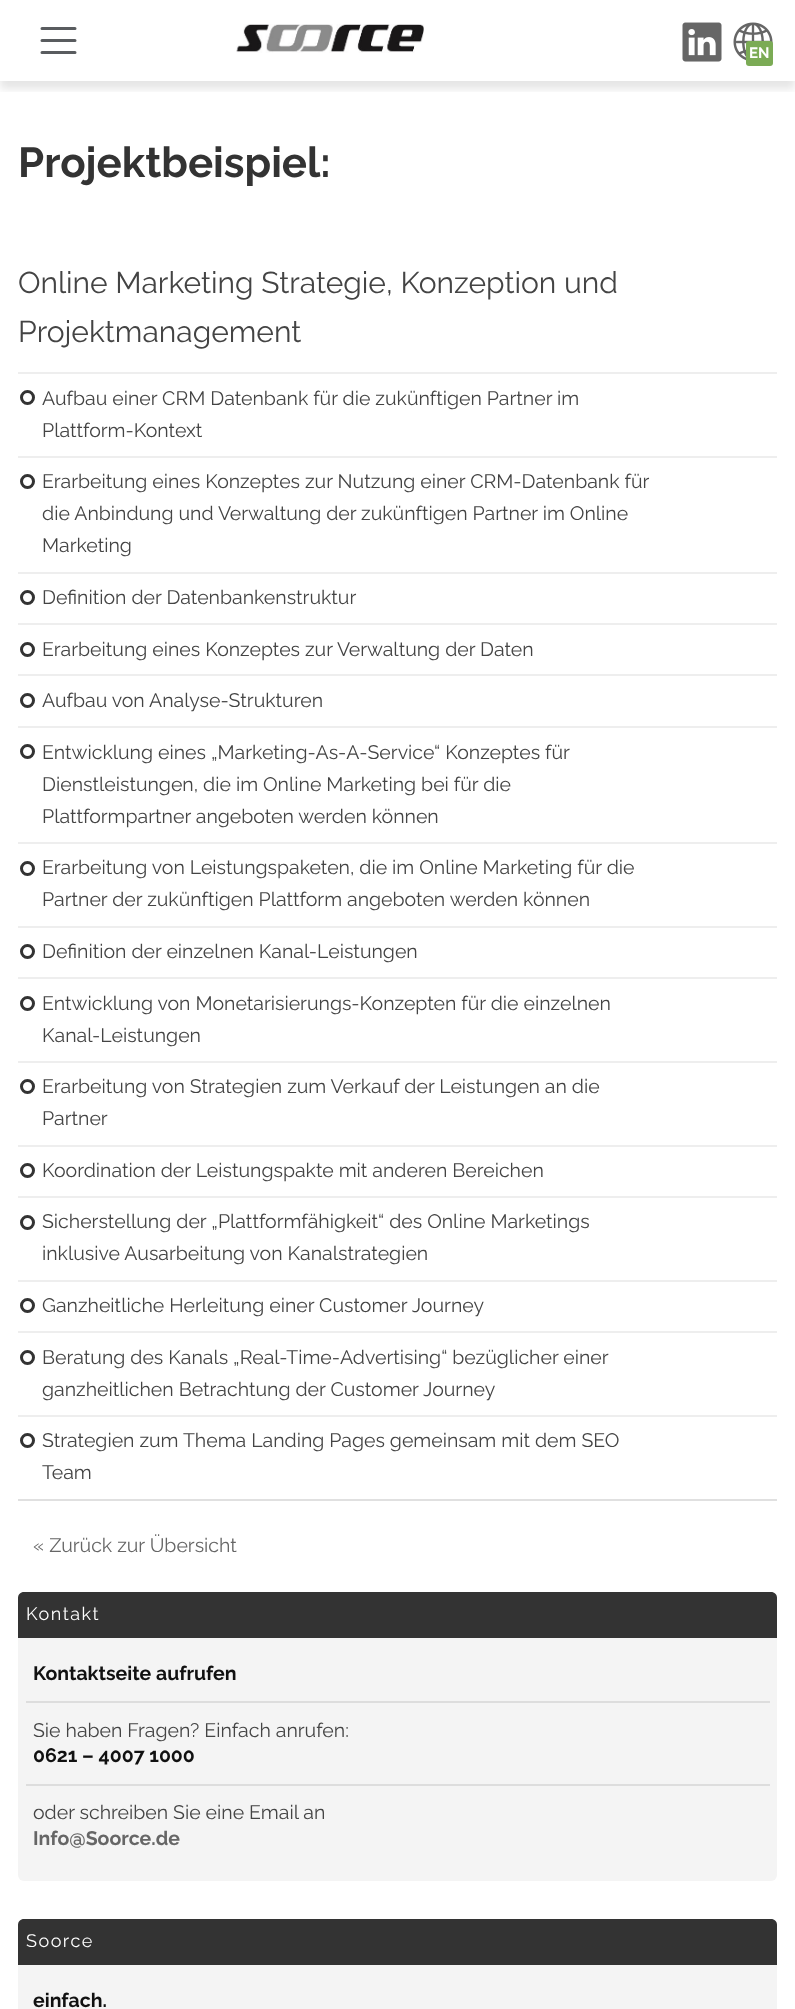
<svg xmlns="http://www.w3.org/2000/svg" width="795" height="2009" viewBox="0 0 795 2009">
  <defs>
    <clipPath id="clip1"><path d="M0 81h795v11H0z"/></clipPath>
  </defs>
  <rect width="100%" height="100%" fill="#fff"/>
  <g clip-path="url(#clip1)">
    <path d="M0 8h795v81H0z" fill="#0000001a" filter="blur(4px)"/>
  </g>
  <path d="M42 28.5H75M42 40.5H75M42 52.5H75" fill="none" stroke="#595c5f" stroke-width="3" stroke-linecap="round"/>
  <image x="236" y="24" width="188" height="29" href="img/1.png"/>
  <image x="682" y="22" width="40" height="40" href="img/2.png"/>
  <image x="733" y="22" width="40" height="39" href="img/3.png"/>
  <rect x="746" y="41" width="27" height="25" rx="3" fill="#7bab55"/>
  <path d="M18 1499h759v2H18z" fill="#e0e0e0"/>
  <path d="M18 372h759v2H18z" fill="#eee"/>
  <circle cx="27.5" cy="397.5" r="6" fill="none" stroke="#333" stroke-width="3"/>
  <path d="M18 456h759v2H18z" fill="#eee"/>
  <circle cx="27.5" cy="481.5" r="6" fill="none" stroke="#333" stroke-width="3"/>
  <path d="M18 572h759v2H18z" fill="#eee"/>
  <circle cx="27.5" cy="597.5" r="6" fill="none" stroke="#333" stroke-width="3"/>
  <path d="M18 623h759v2H18z" fill="#eee"/>
  <circle cx="27.5" cy="649.5" r="6" fill="none" stroke="#333" stroke-width="3"/>
  <path d="M18 674h759v2H18z" fill="#eee"/>
  <circle cx="27.5" cy="700.5" r="6" fill="none" stroke="#333" stroke-width="3"/>
  <path d="M18 726h759v2H18z" fill="#eee"/>
  <circle cx="27.5" cy="751.5" r="6" fill="none" stroke="#333" stroke-width="3"/>
  <path d="M18 842h759v2H18z" fill="#eee"/>
  <circle cx="27.5" cy="868.5" r="6" fill="none" stroke="#333" stroke-width="3"/>
  <path d="M18 926h759v2H18z" fill="#eee"/>
  <circle cx="27.5" cy="951.5" r="6" fill="none" stroke="#333" stroke-width="3"/>
  <path d="M18 977h759v2H18z" fill="#eee"/>
  <circle cx="27.5" cy="1003.5" r="6" fill="none" stroke="#333" stroke-width="3"/>
  <path d="M18 1061h759v2H18z" fill="#eee"/>
  <circle cx="27.5" cy="1086.5" r="6" fill="none" stroke="#333" stroke-width="3"/>
  <path d="M18 1145h759v2H18z" fill="#eee"/>
  <circle cx="27.5" cy="1170.5" r="6" fill="none" stroke="#333" stroke-width="3"/>
  <path d="M18 1196h759v2H18z" fill="#eee"/>
  <circle cx="27.5" cy="1222.5" r="6" fill="none" stroke="#333" stroke-width="3"/>
  <path d="M18 1280h759v2H18z" fill="#eee"/>
  <circle cx="27.5" cy="1305.5" r="6" fill="none" stroke="#333" stroke-width="3"/>
  <path d="M18 1331h759v2H18z" fill="#eee"/>
  <circle cx="27.5" cy="1357.5" r="6" fill="none" stroke="#333" stroke-width="3"/>
  <path d="M18 1415h759v2H18z" fill="#eee"/>
  <circle cx="27.5" cy="1440.5" r="6" fill="none" stroke="#333" stroke-width="3"/>
  <rect x="18" y="1592" width="759" height="289" rx="6" fill="#f4f4f4"/>
  <path d="M24 1592H771C774.5 1592 777 1594.5 777 1598V1638H18V1598C18 1594.5 20.5 1592 24 1592Z" fill="#333"/>
  <path d="M26 1701h744v2H26z" fill="#ddd"/>
  <path d="M26 1784h744v2H26z" fill="#ddd"/>
  <rect x="18" y="1919" width="759" height="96" rx="6" fill="#f4f4f4"/>
  <path d="M24 1919H771C774.5 1919 777 1921.5 777 1925V1965H18V1925C18 1921.5 20.5 1919 24 1919Z" fill="#333"/>
  <text x="749" y="58" font-family="Raleway" font-size="15" font-weight="100" fill="#fff">EN</text>
  <text x="18" y="177" font-family="Raleway" font-size="42" font-weight="100" fill="#333">Projektbeispiel:</text>
  <g font-family="'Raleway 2'" font-size="30" font-weight="100" fill="#444">
    <text x="18" y="293">Online Marketing Strategie, Konzeption und</text>
    <text x="18" y="342">Projektmanagement</text>
  </g>
  <g font-family="'Raleway 2'" font-size="19.5" font-weight="100" fill="#444">
    <text x="42" y="405">Aufbau einer CRM Datenbank für die zukünftigen Partner im</text>
    <text x="42" y="437">Plattform-Kontext</text>
    <text x="42" y="488">Erarbeitung eines Konzeptes zur Nutzung einer CRM-Datenbank für</text>
    <text x="42" y="520">die Anbindung und Verwaltung der zukünftigen Partner im Online</text>
    <text x="42" y="552">Marketing</text>
    <text x="42" y="604">Definition der Datenbankenstruktur</text>
    <text x="42" y="656">Erarbeitung eines Konzeptes zur Verwaltung der Daten</text>
    <text x="42" y="707">Aufbau von Analyse-Strukturen</text>
    <text x="42" y="759">Entwicklung eines „Marketing-As-A-Service“ Konzeptes für</text>
    <text x="42" y="791">Dienstleistungen, die im Online Marketing bei für die</text>
    <text x="42" y="823">Plattformpartner angeboten werden können</text>
    <text x="42" y="874">Erarbeitung von Leistungspaketen, die im Online Marketing für die</text>
    <text x="42" y="906">Partner der zukünftigen Plattform angeboten werden können</text>
    <text x="42" y="958">Definition der einzelnen Kanal-Leistungen</text>
    <text x="42" y="1010">Entwicklung von Monetarisierungs-Konzepten für die einzelnen</text>
    <text x="42" y="1042">Kanal-Leistungen</text>
    <text x="42" y="1093">Erarbeitung von Strategien zum Verkauf der Leistungen an die</text>
    <text x="42" y="1125">Partner</text>
    <text x="42" y="1177">Koordination der Leistungspakte mit anderen Bereichen</text>
    <text x="42" y="1228">Sicherstellung der „Plattformfähigkeit“ des Online Marketings</text>
    <text x="42" y="1260">inklusive Ausarbeitung von Kanalstrategien</text>
    <text x="42" y="1312">Ganzheitliche Herleitung einer Customer Journey</text>
    <text x="42" y="1364">Beratung des Kanals „Real-Time-Advertising“ bezüglicher einer</text>
    <text x="42" y="1396">ganzheitlichen Betrachtung der Customer Journey</text>
    <text x="42" y="1447">Strategien zum Thema Landing Pages gemeinsam mit dem SEO</text>
    <text x="42" y="1479">Team</text>
  </g>
  <text x="33" y="1552" font-family="'Raleway 2'" font-size="19.5" font-weight="100" fill="#666">« Zurück zur Übersicht</text>
  <text x="26" y="1620" font-family="'Raleway 2'" font-size="18" font-weight="100" letter-spacing="1.5" fill="#fff">Kontakt</text>
  <text x="33" y="1680" font-family="Raleway" font-size="19.5" font-weight="100" fill="#111">Kontaktseite aufrufen</text>
  <text x="33" y="1737" font-family="'Raleway 2'" font-size="19.5" font-weight="100" fill="#444">Sie haben Fragen? Einfach anrufen:</text>
  <text x="33" y="1762" font-family="Raleway" font-size="19.5" font-weight="100" fill="#111">0621 – 4007 1000</text>
  <text x="33" y="1819" font-family="'Raleway 2'" font-size="19.5" font-weight="100" fill="#444">oder schreiben Sie eine Email an</text>
  <text x="33" y="1845" font-family="Raleway" font-size="19.5" font-weight="100" fill="#666">Info@Soorce.de</text>
  <text x="26" y="1947" font-family="'Raleway 2'" font-size="18" font-weight="100" letter-spacing="1.5" fill="#fff">Soorce</text>
  <text x="33" y="2007" font-family="Raleway" font-size="19.5" font-weight="100" fill="#111">einfach.</text>
</svg>
